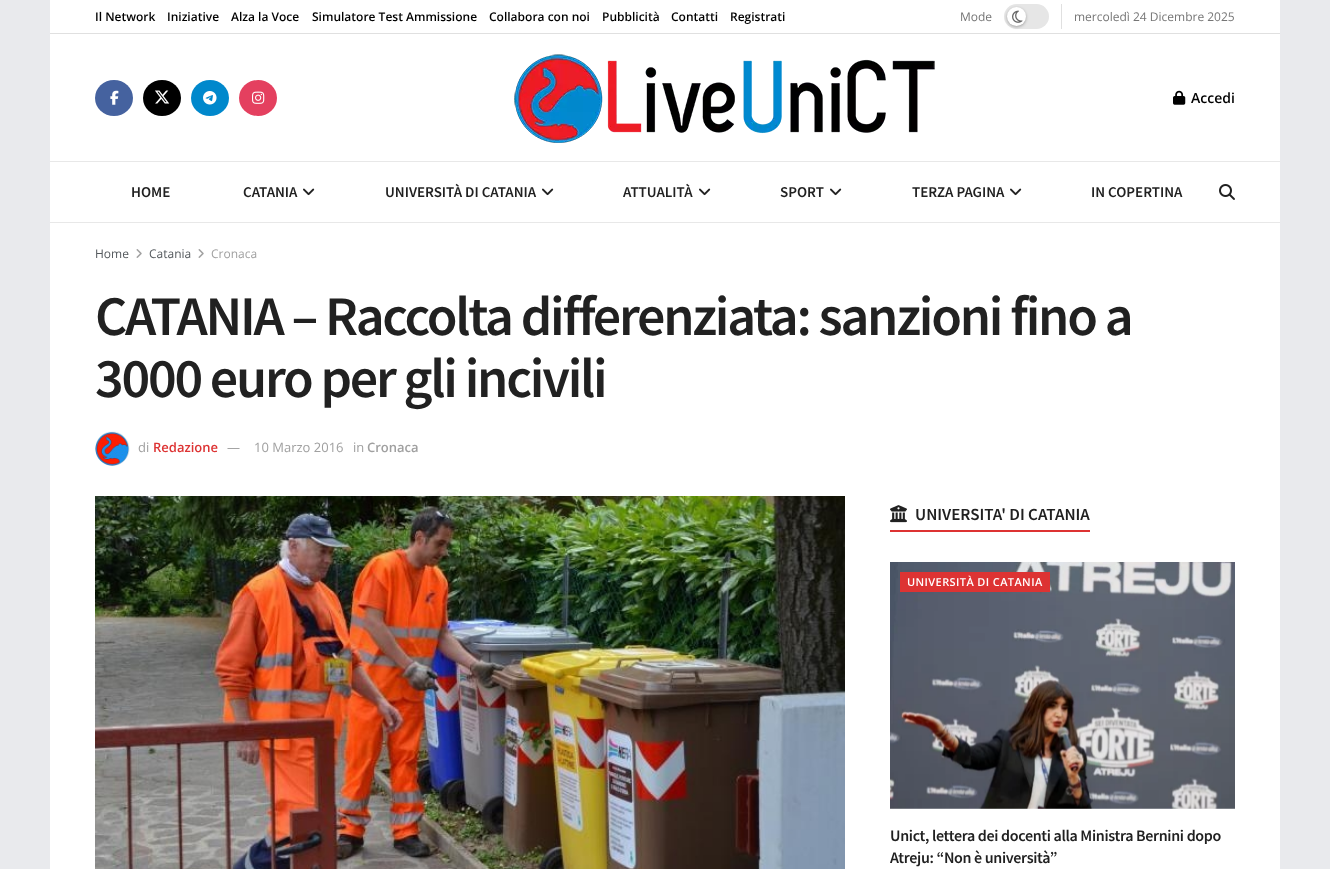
<svg xmlns="http://www.w3.org/2000/svg" width="1330" height="869" viewBox="0 0 1330 869">
  <rect width="100%" height="100%" fill="#e9eaed"/>
  <path d="M50 0h1230v33H50z" fill="#fff"/>
  <path d="M50 33h1230v1H50z" fill="#e0e0e0"/>
  <path d="M1061 4h1v25H1061z" fill="#e0e0e0"/>
  <rect x="1004" y="4" width="45" height="25" rx="12.5" fill="#e6e6e6"/>
  <rect x="1007" y="8" width="19" height="19" rx="9.5" fill="#0000004d" filter="blur(1.5px)"/>
  <circle cx="1016.5" cy="16.5" r="9.5" fill="#fff"/>
  <image x="1012" y="10" width="11" height="13" href="img/1.png"/>
  <path d="M50 34h1230v127H50z" fill="#fff"/>
  <ellipse cx="114" cy="98" rx="19" ry="18" fill="#45629f"/>
  <image x="110" y="90" width="9" height="15" href="img/2.png"/>
  <ellipse cx="162" cy="98" rx="19" ry="18" fill="#000"/>
  <image x="155" y="90" width="15" height="14" href="img/3.png"/>
  <ellipse cx="210" cy="98" rx="19" ry="18" fill="#08c"/>
  <image x="203" y="91" width="14" height="14" href="img/4.png"/>
  <ellipse cx="258" cy="98" rx="19" ry="18" fill="#e4405f"/>
  <image x="252" y="91" width="13" height="13" href="img/5.png"/>
  <image x="514" y="54" width="421" height="89" href="img/6.png"/>
  <image x="1173" y="90" width="13" height="15" href="img/7.png"/>
  <path d="M50 162h1230v60H50z" fill="#fff"/>
  <path d="M50 161h1230v1H50z" fill="#e8e8e8"/>
  <path d="M50 222h1230v1H50z" fill="#e8e8e8"/>
  <image x="303" y="188" width="12" height="8" href="img/8.png"/>
  <image x="542" y="188" width="12" height="8" href="img/8.png"/>
  <image x="699" y="188" width="12" height="8" href="img/8.png"/>
  <image x="830" y="188" width="12" height="8" href="img/8.png"/>
  <image x="1010" y="188" width="12" height="8" href="img/8.png"/>
  <image x="1219" y="184" width="16" height="16" href="img/9.png"/>
  <path d="M50 223h1230v646H50z" fill="#fff"/>
  <image x="136" y="249" width="6" height="9" href="img/10.png"/>
  <image x="198" y="249" width="6" height="9" href="img/10.png"/>
  <image x="95" y="431" width="35" height="35" href="img/11.png"/>
  <image x="95" y="496" width="750" height="373" href="img/12.png"/>
  <path d="M890 530h200v2H890z" fill="#d33"/>
  <image x="890" y="505" width="17" height="18" href="img/13.png"/>
  <image x="890" y="562" width="345" height="247" href="img/14.png"/>
  <path d="M900 572h150v20H900z" fill="#d33"/>
  <g font-family="Open Sans" font-size="12" font-weight="600" fill="#000">
    <text x="95" y="21">Il Network</text>
    <text x="167" y="21">Iniziative</text>
    <text x="231" y="21">Alza la Voce</text>
    <text x="312" y="21">Simulatore Test Ammissione</text>
    <text x="489" y="21">Collabora con noi</text>
    <text x="602" y="21">Pubblicità</text>
    <text x="671" y="21">Contatti</text>
    <text x="730" y="21">Registrati</text>
  </g>
  <g font-family="Open Sans" font-size="12" fill="#757575">
    <text x="960" y="21">Mode</text>
    <text x="1074" y="21">mercoledì 24 Dicembre 2025</text>
  </g>
  <text x="1191" y="103" font-family="Open Sans" font-size="14" font-weight="600" fill="#000">Accedi</text>
  <g font-family="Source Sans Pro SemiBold" font-size="15" font-weight="600" fill="#212121">
    <text x="131" y="197">HOME</text>
    <text x="243" y="197">CATANIA</text>
    <text x="385" y="197">UNIVERSITÀ DI CATANIA</text>
    <text x="623" y="197">ATTUALITÀ</text>
    <text x="780" y="197">SPORT</text>
    <text x="912" y="197">TERZA PAGINA</text>
    <text x="1091" y="197">IN COPERTINA</text>
  </g>
  <g font-family="Open Sans" font-size="12" fill="#53585c">
    <text x="95" y="258">Home</text>
    <text x="149" y="258">Catania</text>
  </g>
  <text x="211" y="258" font-family="Open Sans" font-size="12" fill="#a0a0a0">Cronaca</text>
  <g font-family="Source Sans Pro SemiBold" font-size="56" font-weight="600" letter-spacing="-2.25" fill="#212121">
    <text x="95" y="335">CATANIA – Raccolta differenziata: sanzioni fino a</text>
    <text x="95" y="397">3000 euro per gli incivili</text>
  </g>
  <text x="138" y="452" font-family="Open Sans" font-size="13" fill="#a0a0a0">di</text>
  <text x="153" y="452" font-family="Open Sans" font-size="13" font-weight="600" fill="#d33">Redazione</text>
  <g font-family="Open Sans" font-size="13" fill="#a0a0a0">
    <text x="227" y="452">—</text>
    <text x="254" y="452">10 Marzo 2016</text>
    <text x="353" y="452">in</text>
  </g>
  <text x="367" y="452" font-family="Open Sans" font-size="13" font-weight="600" fill="#a0a0a0">Cronaca</text>
  <text x="915" y="520" font-family="Source Sans Pro SemiBold" font-size="17" font-weight="600" fill="#212121">UNIVERSITA' DI CATANIA</text>
  <text x="907" y="586" font-family="Open Sans" font-size="11" font-weight="600" letter-spacing="0.4" fill="#fff">UNIVERSITÀ DI CATANIA</text>
  <g font-family="Source Sans Pro SemiBold" font-size="16" font-weight="600" letter-spacing="-0.32" fill="#212121">
    <text x="890" y="841">Unict, lettera dei docenti alla Ministra Bernini dopo</text>
    <text x="890" y="863">Atreju: “Non è università”</text>
  </g>
</svg>
